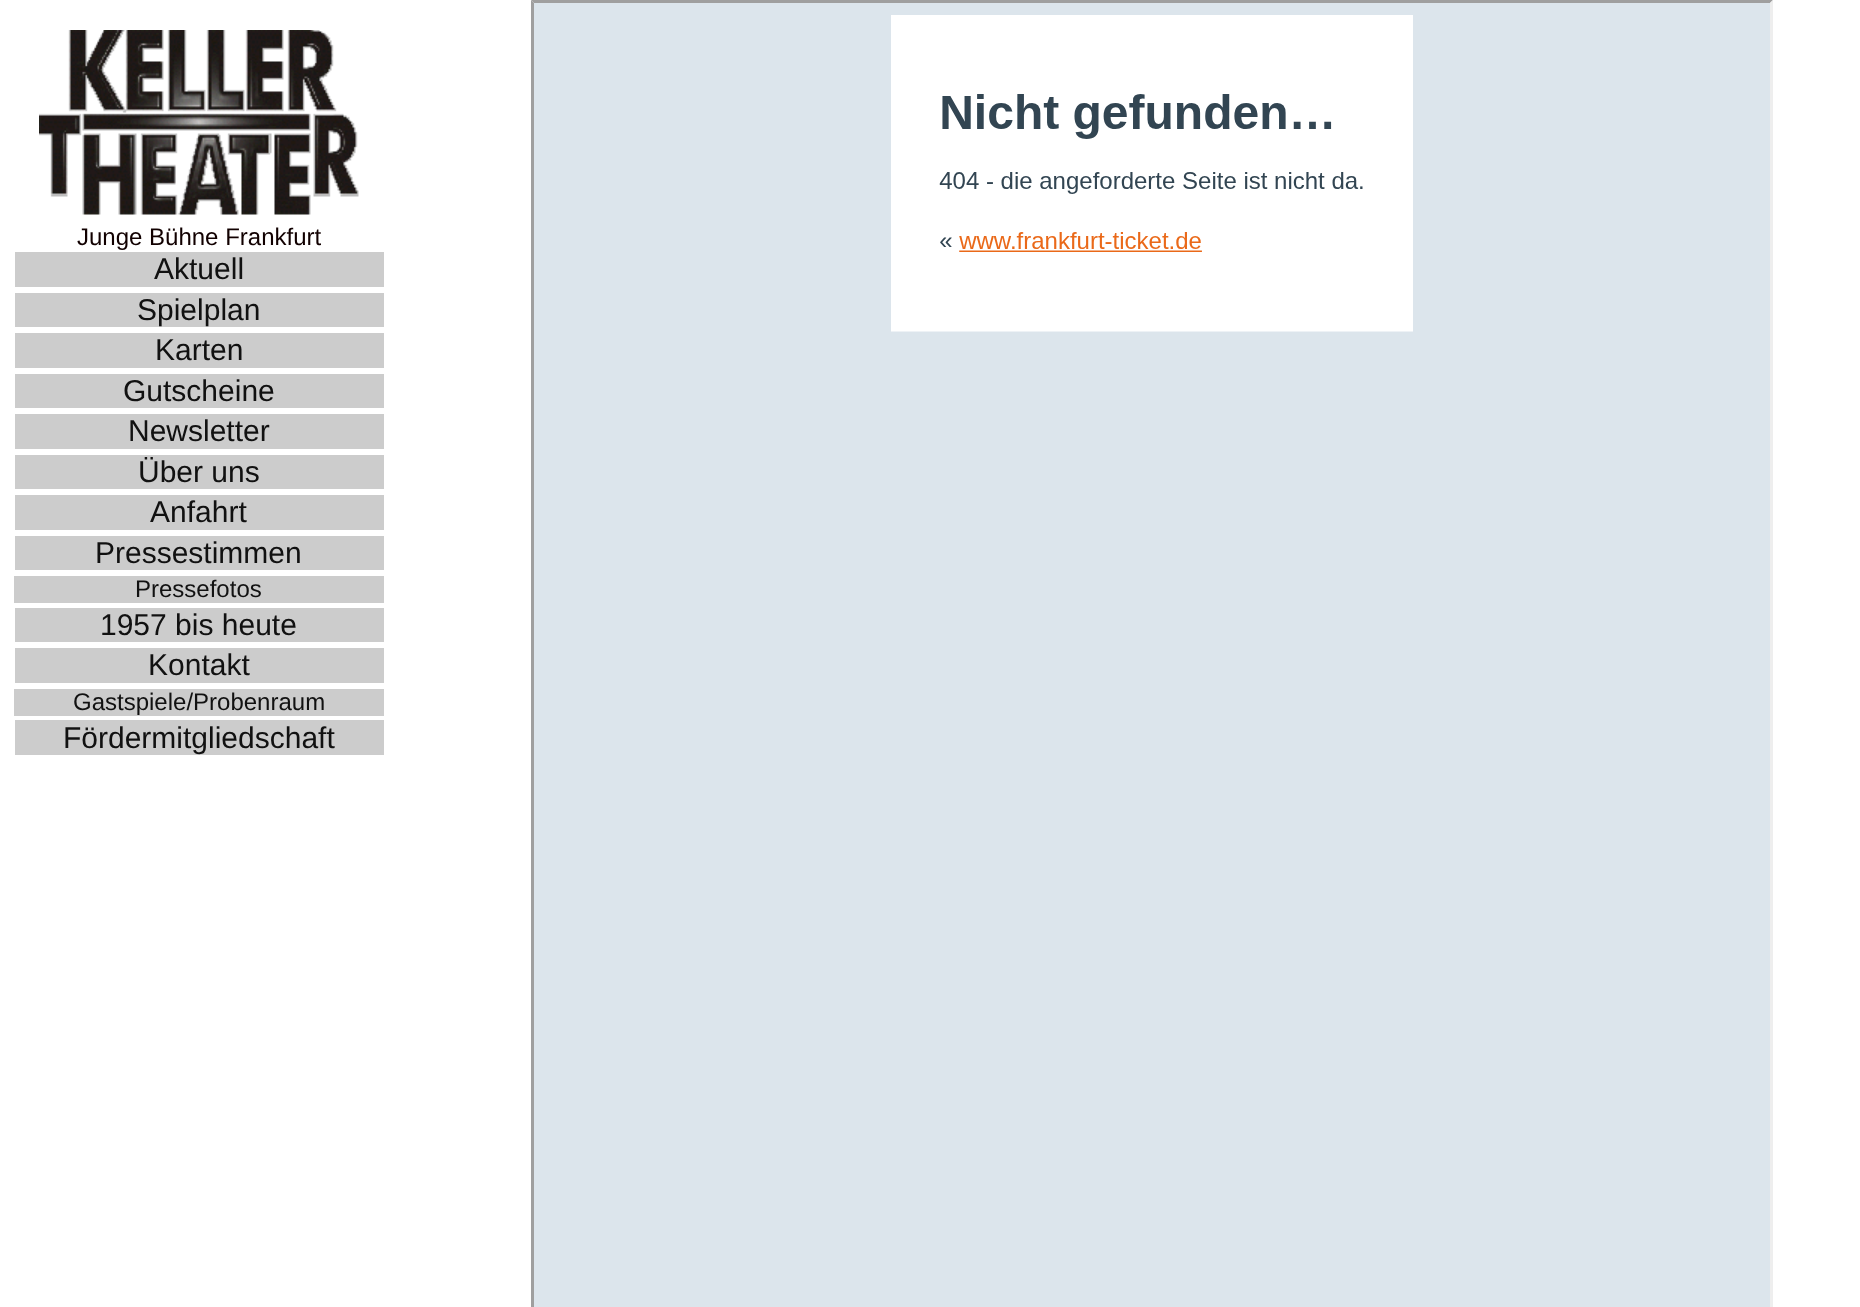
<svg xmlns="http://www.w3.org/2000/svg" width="1860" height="1307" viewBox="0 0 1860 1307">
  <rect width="100%" height="100%" fill="#fff"/>
  <image x="39" y="30" width="320" height="185" href="img/1.png"/>
  <path d="M15 252h369v35H15z" fill="#ccc"/>
  <path d="M15 293h369v34H15z" fill="#ccc"/>
  <path d="M15 333h369v35H15z" fill="#ccc"/>
  <path d="M15 374h369v34H15z" fill="#ccc"/>
  <path d="M15 414h369v35H15z" fill="#ccc"/>
  <path d="M15 455h369v34H15z" fill="#ccc"/>
  <path d="M15 495h369v35H15z" fill="#ccc"/>
  <path d="M15 536h369v34H15z" fill="#ccc"/>
  <path d="M14 576h370v27H14z" fill="#ccc"/>
  <path d="M15 608h369v34H15z" fill="#ccc"/>
  <path d="M15 648h369v35H15z" fill="#ccc"/>
  <path d="M14 689h370v27H14z" fill="#ccc"/>
  <path d="M15 720h369v35H15z" fill="#ccc"/>
  <path d="M531 0H1773L1770 3H534Z" fill="#9f9f9f"/>
  <path d="M531 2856V0L534 3V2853Z" fill="#9f9f9f"/>
  <image x="534" y="3" width="1236" height="1304" href="img/2.png"/>
  <path d="M1773 0V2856L1770 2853V3Z" fill="#eee"/>
  <text x="77" y="245" font-family="Liberation Sans" font-size="24" fill="#100">Junge Bühne Frankfurt</text>
  <g font-family="Liberation Sans" font-size="30" fill="#111">
    <text x="154" y="279">Aktuell</text>
    <text x="137" y="320">Spielplan</text>
    <text x="155" y="360">Karten</text>
    <text x="123" y="401">Gutscheine</text>
    <text x="128" y="441">Newsletter</text>
    <text x="138" y="482">Über uns</text>
    <text x="150" y="522">Anfahrt</text>
    <text x="95" y="563">Pressestimmen</text>
  </g>
  <text x="135" y="597" font-family="Liberation Sans" font-size="24" fill="#111">Pressefotos</text>
  <g font-family="Liberation Sans" font-size="30" fill="#111">
    <text x="100" y="635">1957 bis heute</text>
    <text x="148" y="675">Kontakt</text>
  </g>
  <text x="73" y="710" font-family="Liberation Sans" font-size="24" fill="#111">Gastspiele/Probenraum</text>
  <text x="63" y="748" font-family="Liberation Sans" font-size="30" fill="#111">Fördermitgliedschaft</text>
</svg>
